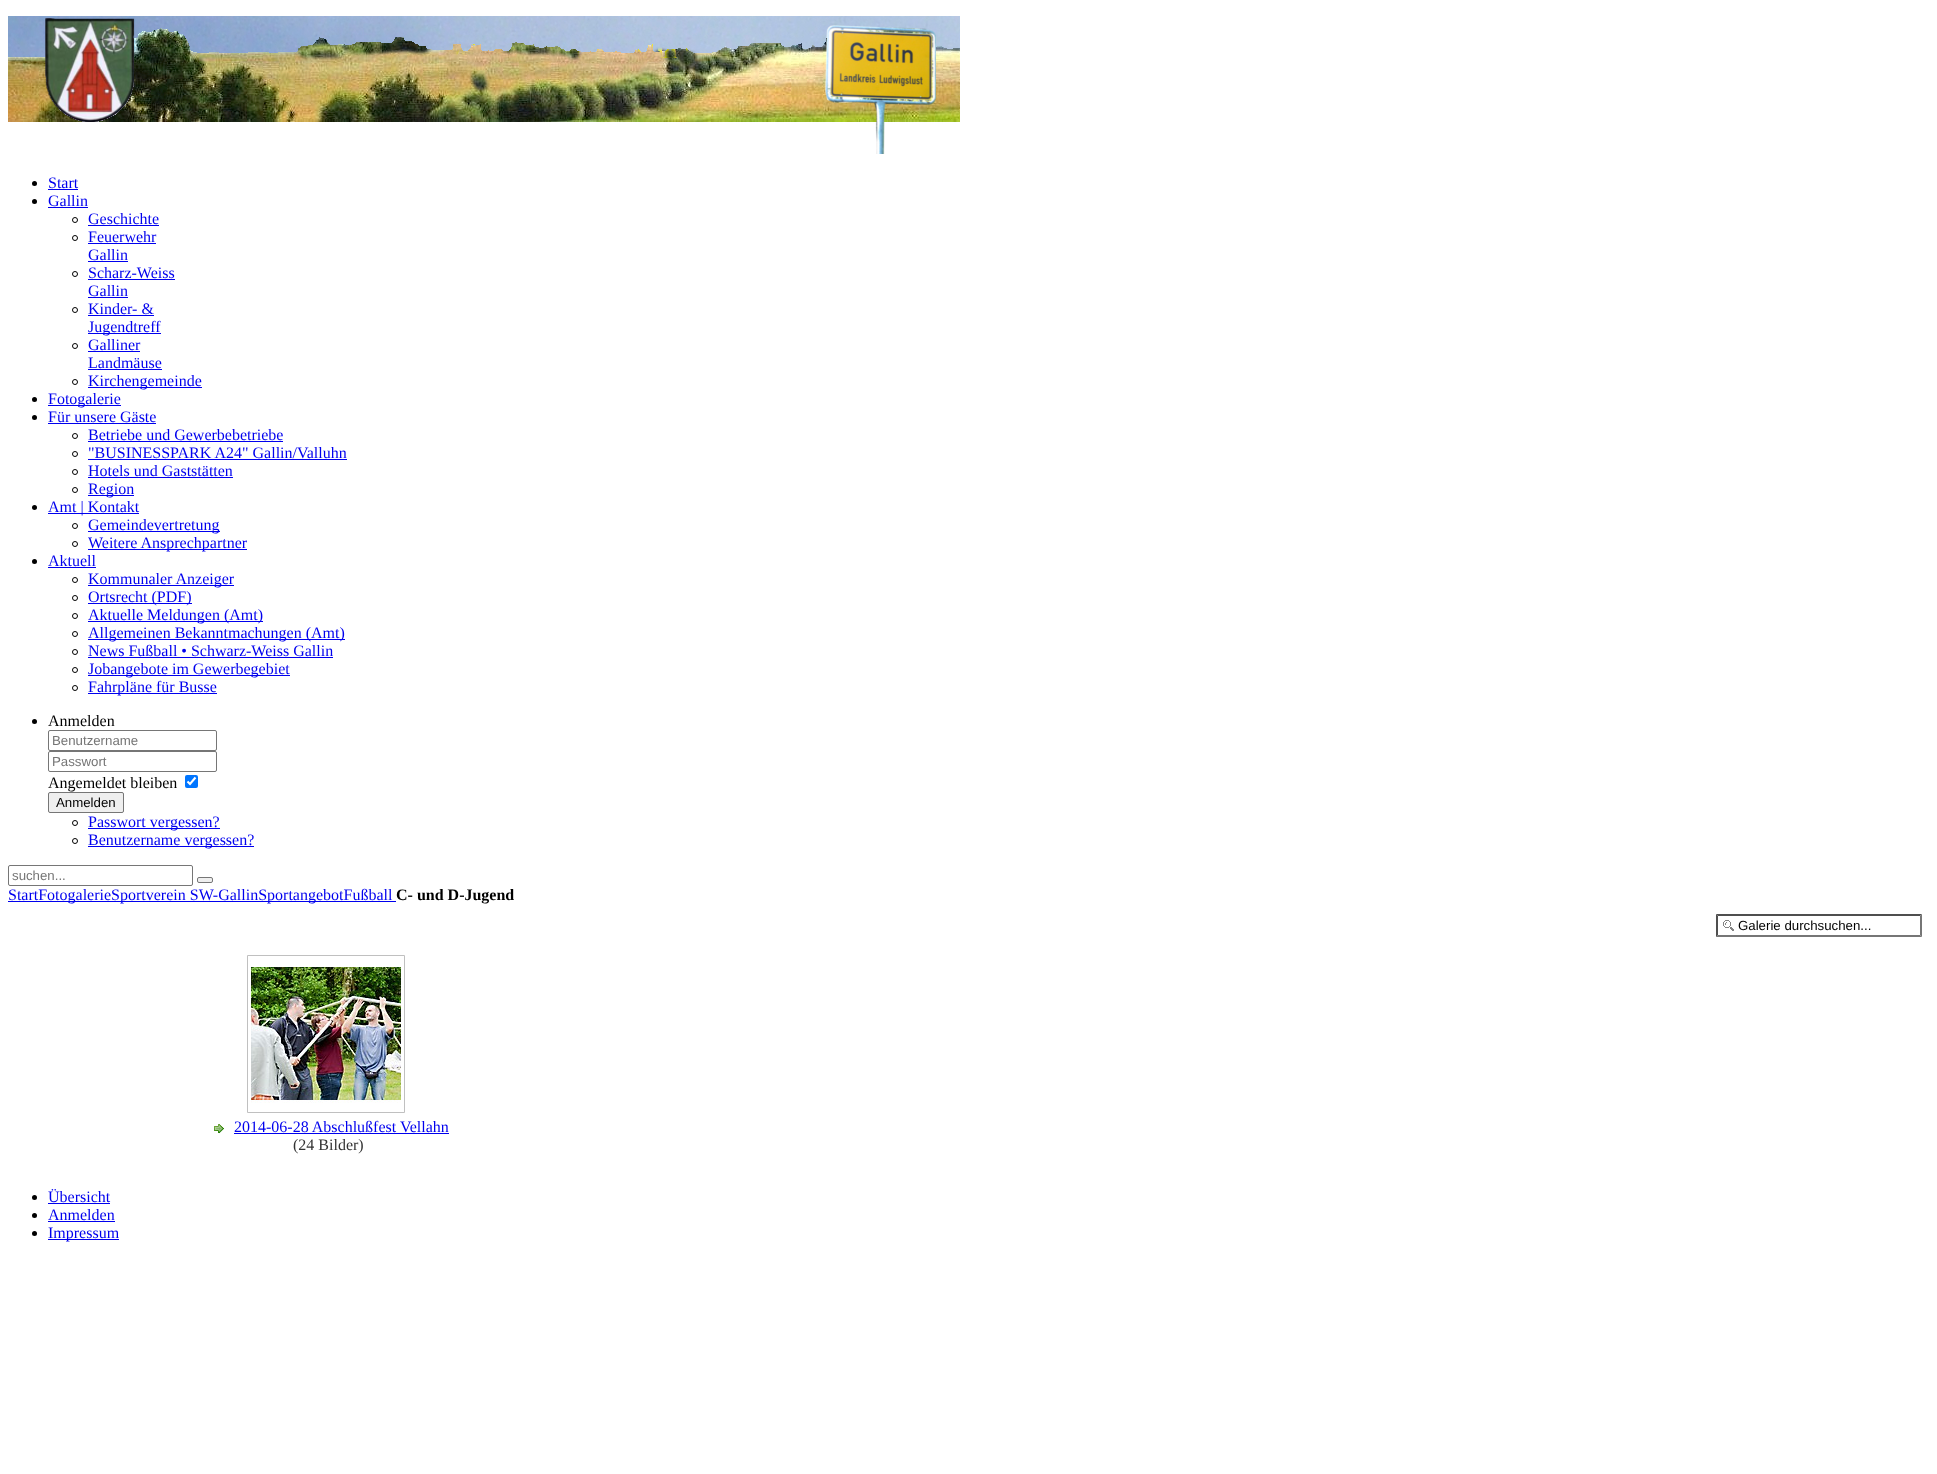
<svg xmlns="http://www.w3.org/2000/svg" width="1937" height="1474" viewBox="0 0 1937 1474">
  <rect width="100%" height="100%" fill="#fff"/>
  <image x="8" y="16" width="952" height="138" href="img/1.png"/>
  <circle cx="34.5" cy="183.5" r="2.5" fill="#000"/>
  <path d="M48 189h30v1H48z" fill="#00e"/>
  <circle cx="34.5" cy="201.5" r="2.5" fill="#000"/>
  <path d="M48 207h40v1H48z" fill="#00e"/>
  <circle cx="75" cy="220" r="2.5" fill="none" stroke="#000"/>
  <path d="M88 225h71v1H88z" fill="#00e"/>
  <circle cx="75" cy="238" r="2.5" fill="none" stroke="#000"/>
  <path d="M88 243h68v1H88z" fill="#00e"/>
  <path d="M88 261h40v1H88z" fill="#00e"/>
  <circle cx="75" cy="274" r="2.5" fill="none" stroke="#000"/>
  <path d="M88 279h87v1H88z" fill="#00e"/>
  <path d="M88 297h40v1H88z" fill="#00e"/>
  <circle cx="75" cy="310" r="2.5" fill="none" stroke="#000"/>
  <path d="M88 315h66v1H88z" fill="#00e"/>
  <path d="M88 333h73v1H88z" fill="#00e"/>
  <circle cx="75" cy="346" r="2.5" fill="none" stroke="#000"/>
  <path d="M88 351h52v1H88z" fill="#00e"/>
  <path d="M88 369h74v1H88z" fill="#00e"/>
  <circle cx="75" cy="382" r="2.5" fill="none" stroke="#000"/>
  <path d="M88 387h114v1H88z" fill="#00e"/>
  <circle cx="34.5" cy="399.5" r="2.5" fill="#000"/>
  <path d="M48 405h73v1H48z" fill="#00e"/>
  <circle cx="34.5" cy="417.5" r="2.5" fill="#000"/>
  <path d="M48 423h108v1H48z" fill="#00e"/>
  <circle cx="75" cy="436" r="2.5" fill="none" stroke="#000"/>
  <path d="M88 441h195v1H88z" fill="#00e"/>
  <circle cx="75" cy="454" r="2.5" fill="none" stroke="#000"/>
  <path d="M88 459h259v1H88z" fill="#00e"/>
  <circle cx="75" cy="472" r="2.5" fill="none" stroke="#000"/>
  <path d="M88 477h145v1H88z" fill="#00e"/>
  <circle cx="75" cy="490" r="2.5" fill="none" stroke="#000"/>
  <path d="M88 495h46v1H88z" fill="#00e"/>
  <circle cx="34.5" cy="507.5" r="2.5" fill="#000"/>
  <path d="M48 513h91v1H48z" fill="#00e"/>
  <circle cx="75" cy="526" r="2.5" fill="none" stroke="#000"/>
  <path d="M88 531h132v1H88z" fill="#00e"/>
  <circle cx="75" cy="544" r="2.5" fill="none" stroke="#000"/>
  <path d="M88 549h159v1H88z" fill="#00e"/>
  <circle cx="34.5" cy="561.5" r="2.5" fill="#000"/>
  <path d="M48 567h48v1H48z" fill="#00e"/>
  <circle cx="75" cy="580" r="2.5" fill="none" stroke="#000"/>
  <path d="M88 585h146v1H88z" fill="#00e"/>
  <circle cx="75" cy="598" r="2.5" fill="none" stroke="#000"/>
  <path d="M88 603h104v1H88z" fill="#00e"/>
  <circle cx="75" cy="616" r="2.5" fill="none" stroke="#000"/>
  <path d="M88 621h175v1H88z" fill="#00e"/>
  <circle cx="75" cy="634" r="2.5" fill="none" stroke="#000"/>
  <path d="M88 639h257v1H88z" fill="#00e"/>
  <circle cx="75" cy="652" r="2.5" fill="none" stroke="#000"/>
  <path d="M88 657h245v1H88z" fill="#00e"/>
  <circle cx="75" cy="670" r="2.5" fill="none" stroke="#000"/>
  <path d="M88 675h202v1H88z" fill="#00e"/>
  <circle cx="75" cy="688" r="2.5" fill="none" stroke="#000"/>
  <path d="M88 693h129v1H88z" fill="#00e"/>
  <circle cx="34.5" cy="721.5" r="2.5" fill="#000"/>
  <rect x="48.5" y="730.5" width="168" height="20" rx="1.5" fill="none" stroke="#767676"/>
  <rect x="48.5" y="751.5" width="168" height="20" rx="1.5" fill="none" stroke="#767676"/>
  <rect x="185" y="775" width="13" height="13" rx="2" fill="#0075ff"/>
  <path d="M187.5 781.5L190 784L195.5 777.5" fill="none" stroke="#fff" stroke-width="2.1"/>
  <rect x="48.5" y="792.5" width="75" height="20" rx="1.5" fill="#efefef" stroke="#767676"/>
  <circle cx="75" cy="823" r="2.5" fill="none" stroke="#000"/>
  <path d="M88 828h132v1H88z" fill="#00e"/>
  <circle cx="75" cy="841" r="2.5" fill="none" stroke="#000"/>
  <path d="M88 846h166v1H88z" fill="#00e"/>
  <rect x="8.5" y="865.5" width="184" height="20" rx="1.5" fill="none" stroke="#767676"/>
  <rect x="197.5" y="877.5" width="15" height="5" rx="1.5" fill="#efefef" stroke="#767676"/>
  <path d="M8 901h388v1H8z" fill="#00e"/>
  <image x="1723" y="920" width="11" height="11" href="img/2.png"/>
  <path d="M1716 914H1922L1920 916H1718Z" fill="#4f4f4f"/>
  <path d="M1922 914V937L1920 935V916Z" fill="#767676"/>
  <path d="M1922 937H1716L1718 935H1920Z" fill="#767676"/>
  <path d="M1716 937V914L1718 916V935Z" fill="#4f4f4f"/>
  <path d="M247.5 955.5h157v157H247.5z" fill="none" stroke="#c0c0c0"/>
  <image x="251" y="967" width="150" height="136" href="img/3.png"/>
  <image x="214" y="1124" width="10" height="10" href="img/4.png"/>
  <path d="M234 1133h215v1H234z" fill="#00e"/>
  <circle cx="34.5" cy="1197.5" r="2.5" fill="#000"/>
  <path d="M48 1203h62v1H48z" fill="#00e"/>
  <circle cx="34.5" cy="1215.5" r="2.5" fill="#000"/>
  <path d="M48 1221h67v1H48z" fill="#00e"/>
  <circle cx="34.5" cy="1233.5" r="2.5" fill="#000"/>
  <path d="M48 1239h71v1H48z" fill="#00e"/>
  <g font-family="Liberation Serif" font-size="16" fill="#00e">
    <text x="48" y="188">Start</text>
    <text x="48" y="206">Gallin</text>
    <text x="88" y="224">Geschichte</text>
    <text x="88" y="242">Feuerwehr</text>
    <text x="88" y="260">Gallin</text>
    <text x="88" y="278">Scharz-Weiss</text>
    <text x="88" y="296">Gallin</text>
    <text x="88" y="314">Kinder- &amp;</text>
    <text x="88" y="332">Jugendtreff</text>
    <text x="88" y="350">Galliner</text>
    <text x="88" y="368">Landmäuse</text>
    <text x="88" y="386">Kirchengemeinde</text>
    <text x="48" y="404">Fotogalerie</text>
    <text x="48" y="422">Für unsere Gäste</text>
    <text x="88" y="440">Betriebe und Gewerbebetriebe</text>
    <text x="88" y="458">"BUSINESSPARK A24" Gallin/Valluhn</text>
    <text x="88" y="476">Hotels und Gaststätten</text>
    <text x="88" y="494">Region</text>
    <text x="48" y="512">Amt | Kontakt</text>
    <text x="88" y="530">Gemeindevertretung</text>
    <text x="88" y="548">Weitere Ansprechpartner</text>
    <text x="48" y="566">Aktuell</text>
    <text x="88" y="584">Kommunaler Anzeiger</text>
    <text x="88" y="602">Ortsrecht (PDF)</text>
    <text x="88" y="620">Aktuelle Meldungen (Amt)</text>
    <text x="88" y="638">Allgemeinen Bekanntmachungen (Amt)</text>
    <text x="88" y="656">News Fußball • Schwarz-Weiss Gallin</text>
    <text x="88" y="674">Jobangebote im Gewerbegebiet</text>
    <text x="88" y="692">Fahrpläne für Busse</text>
  </g>
  <text x="48" y="726" font-family="Liberation Serif" font-size="16" fill="#000">Anmelden</text>
  <g font-family="Liberation Sans" font-size="13.25" fill="#757575">
    <text x="52" y="745">Benutzername</text>
    <text x="52" y="766">Passwort</text>
  </g>
  <text x="48" y="788" font-family="Liberation Serif" font-size="16" fill="#000">Angemeldet bleiben</text>
  <text x="56" y="807" font-family="Liberation Sans" font-size="13.25" fill="#000">Anmelden</text>
  <g font-family="Liberation Serif" font-size="16" fill="#00e">
    <text x="88" y="827">Passwort vergessen?</text>
    <text x="88" y="845">Benutzername vergessen?</text>
  </g>
  <text x="12" y="880" font-family="Liberation Sans" font-size="13.25" fill="#757575">suchen...</text>
  <text x="8" y="900" font-family="Liberation Serif" font-size="16" fill="#00e">StartFotogalerieSportverein SW-GallinSportangebotFußball</text>
  <text x="396" y="900" font-family="Liberation Serif" font-size="16" font-weight="bold" fill="#000">C- und D-Jugend</text>
  <text x="1738" y="930" font-family="Liberation Sans" font-size="13.25" fill="#000">Galerie durchsuchen...</text>
  <text x="234" y="1132" font-family="Liberation Serif" font-size="16" fill="#00e">2014-06-28 Abschlußfest Vellahn</text>
  <text x="293" y="1150" font-family="Liberation Serif" font-size="16" fill="#333">(24 Bilder)</text>
  <g font-family="Liberation Serif" font-size="16" fill="#00e">
    <text x="48" y="1202">Übersicht</text>
    <text x="48" y="1220">Anmelden</text>
    <text x="48" y="1238">Impressum</text>
  </g>
</svg>
